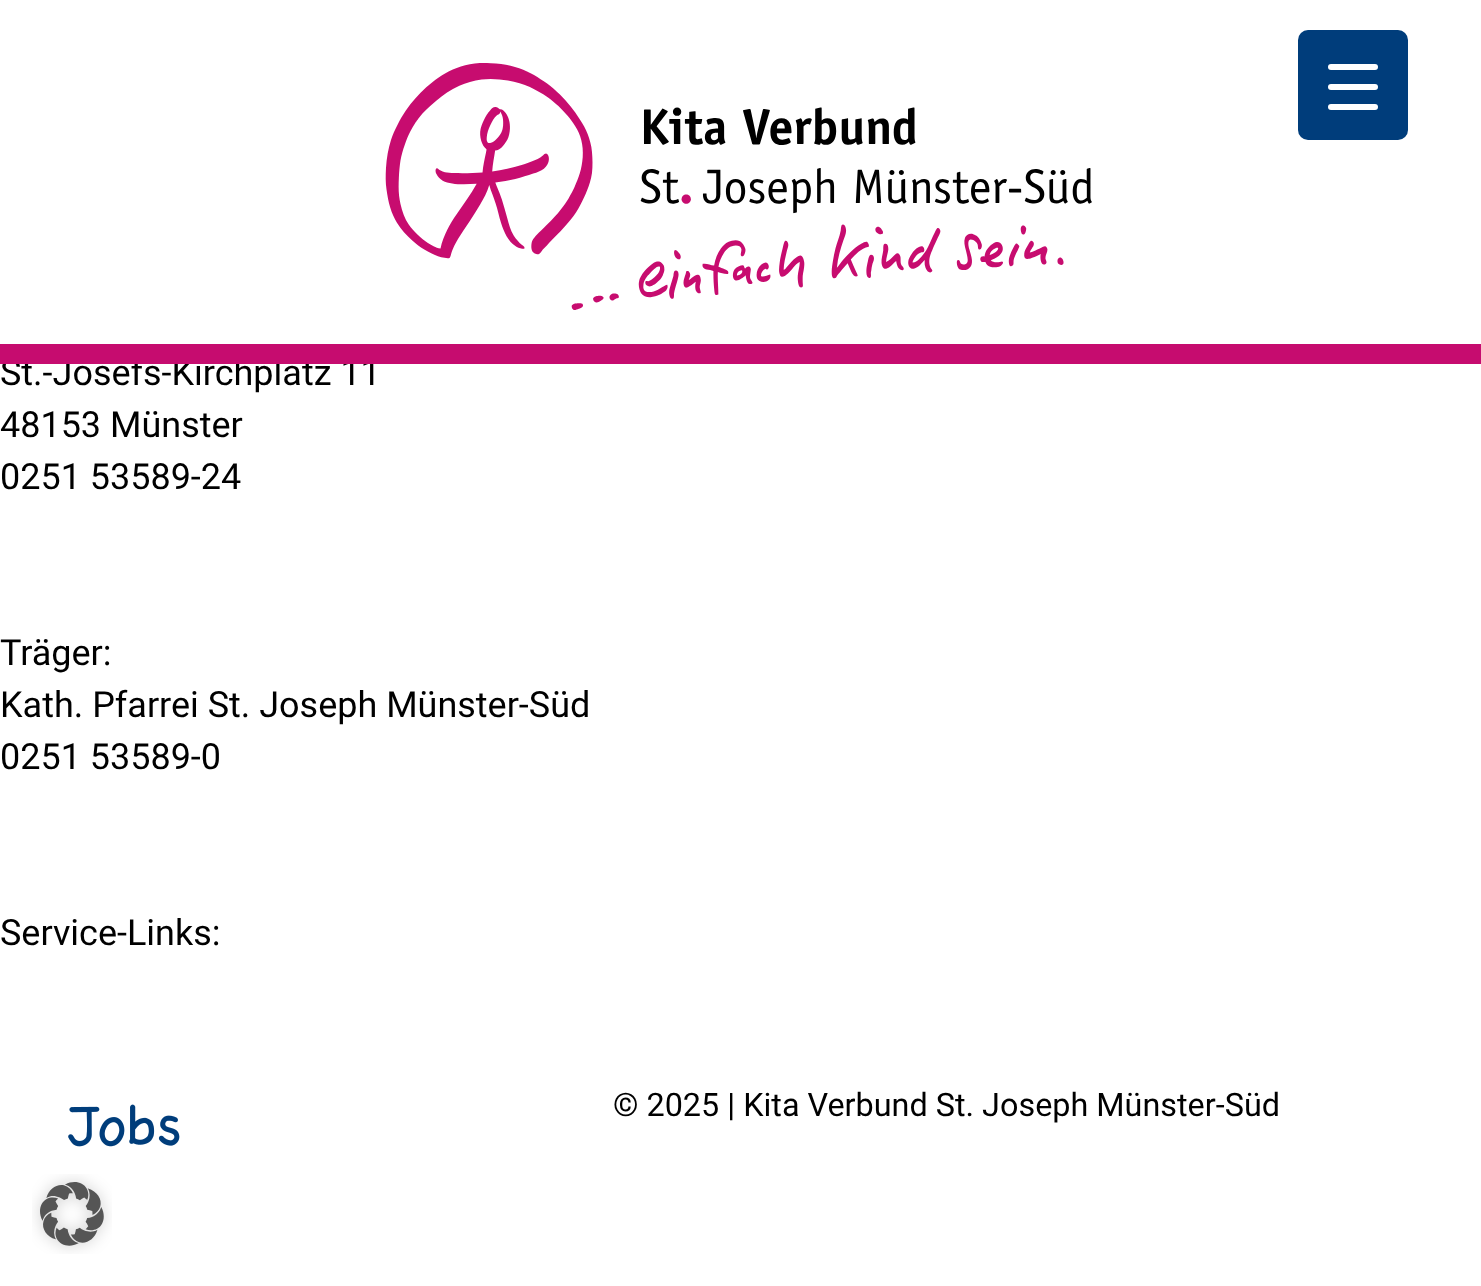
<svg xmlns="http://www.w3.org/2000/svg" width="1481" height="1286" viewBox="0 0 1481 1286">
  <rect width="100%" height="100%" fill="#fff"/>
  <rect x="1298" y="30" width="110" height="110" rx="10" fill="#003d7b"/>
  <rect x="1328" y="84" width="50" height="6" rx="3" fill="#fff"/>
  <rect x="1328" y="64" width="50" height="6" rx="3" fill="#fff"/>
  <rect x="1328" y="104" width="50" height="6" rx="3" fill="#fff"/>
  <image x="385" y="63" width="707" height="247" href="img/1.png"/>
  <image x="68" y="1104" width="112" height="43" href="img/2.png"/>
  <image x="32" y="1174" width="80" height="80" href="img/3.png"/>
  <text x="0" y="385" font-family="Roboto" font-size="36" fill="#000">St.-Josefs-Kirchplatz 11</text>
  <path d="M0 344h1481v20H0z" fill="#c60c6f"/>
  <g font-family="Roboto" font-size="36" fill="#000">
    <text x="0" y="437">48153 Münster</text>
    <text x="0" y="489">0251 53589-24</text>
    <text x="0" y="665">Träger:</text>
    <text x="0" y="717">Kath. Pfarrei St. Joseph Münster-Süd</text>
    <text x="0" y="769">0251 53589-0</text>
    <text x="0" y="945">Service-Links:</text>
  </g>
  <text x="613" y="1116" font-family="Roboto" font-size="32.4" fill="#000">© 2025 | Kita Verbund St. Joseph Münster-Süd</text>
</svg>
